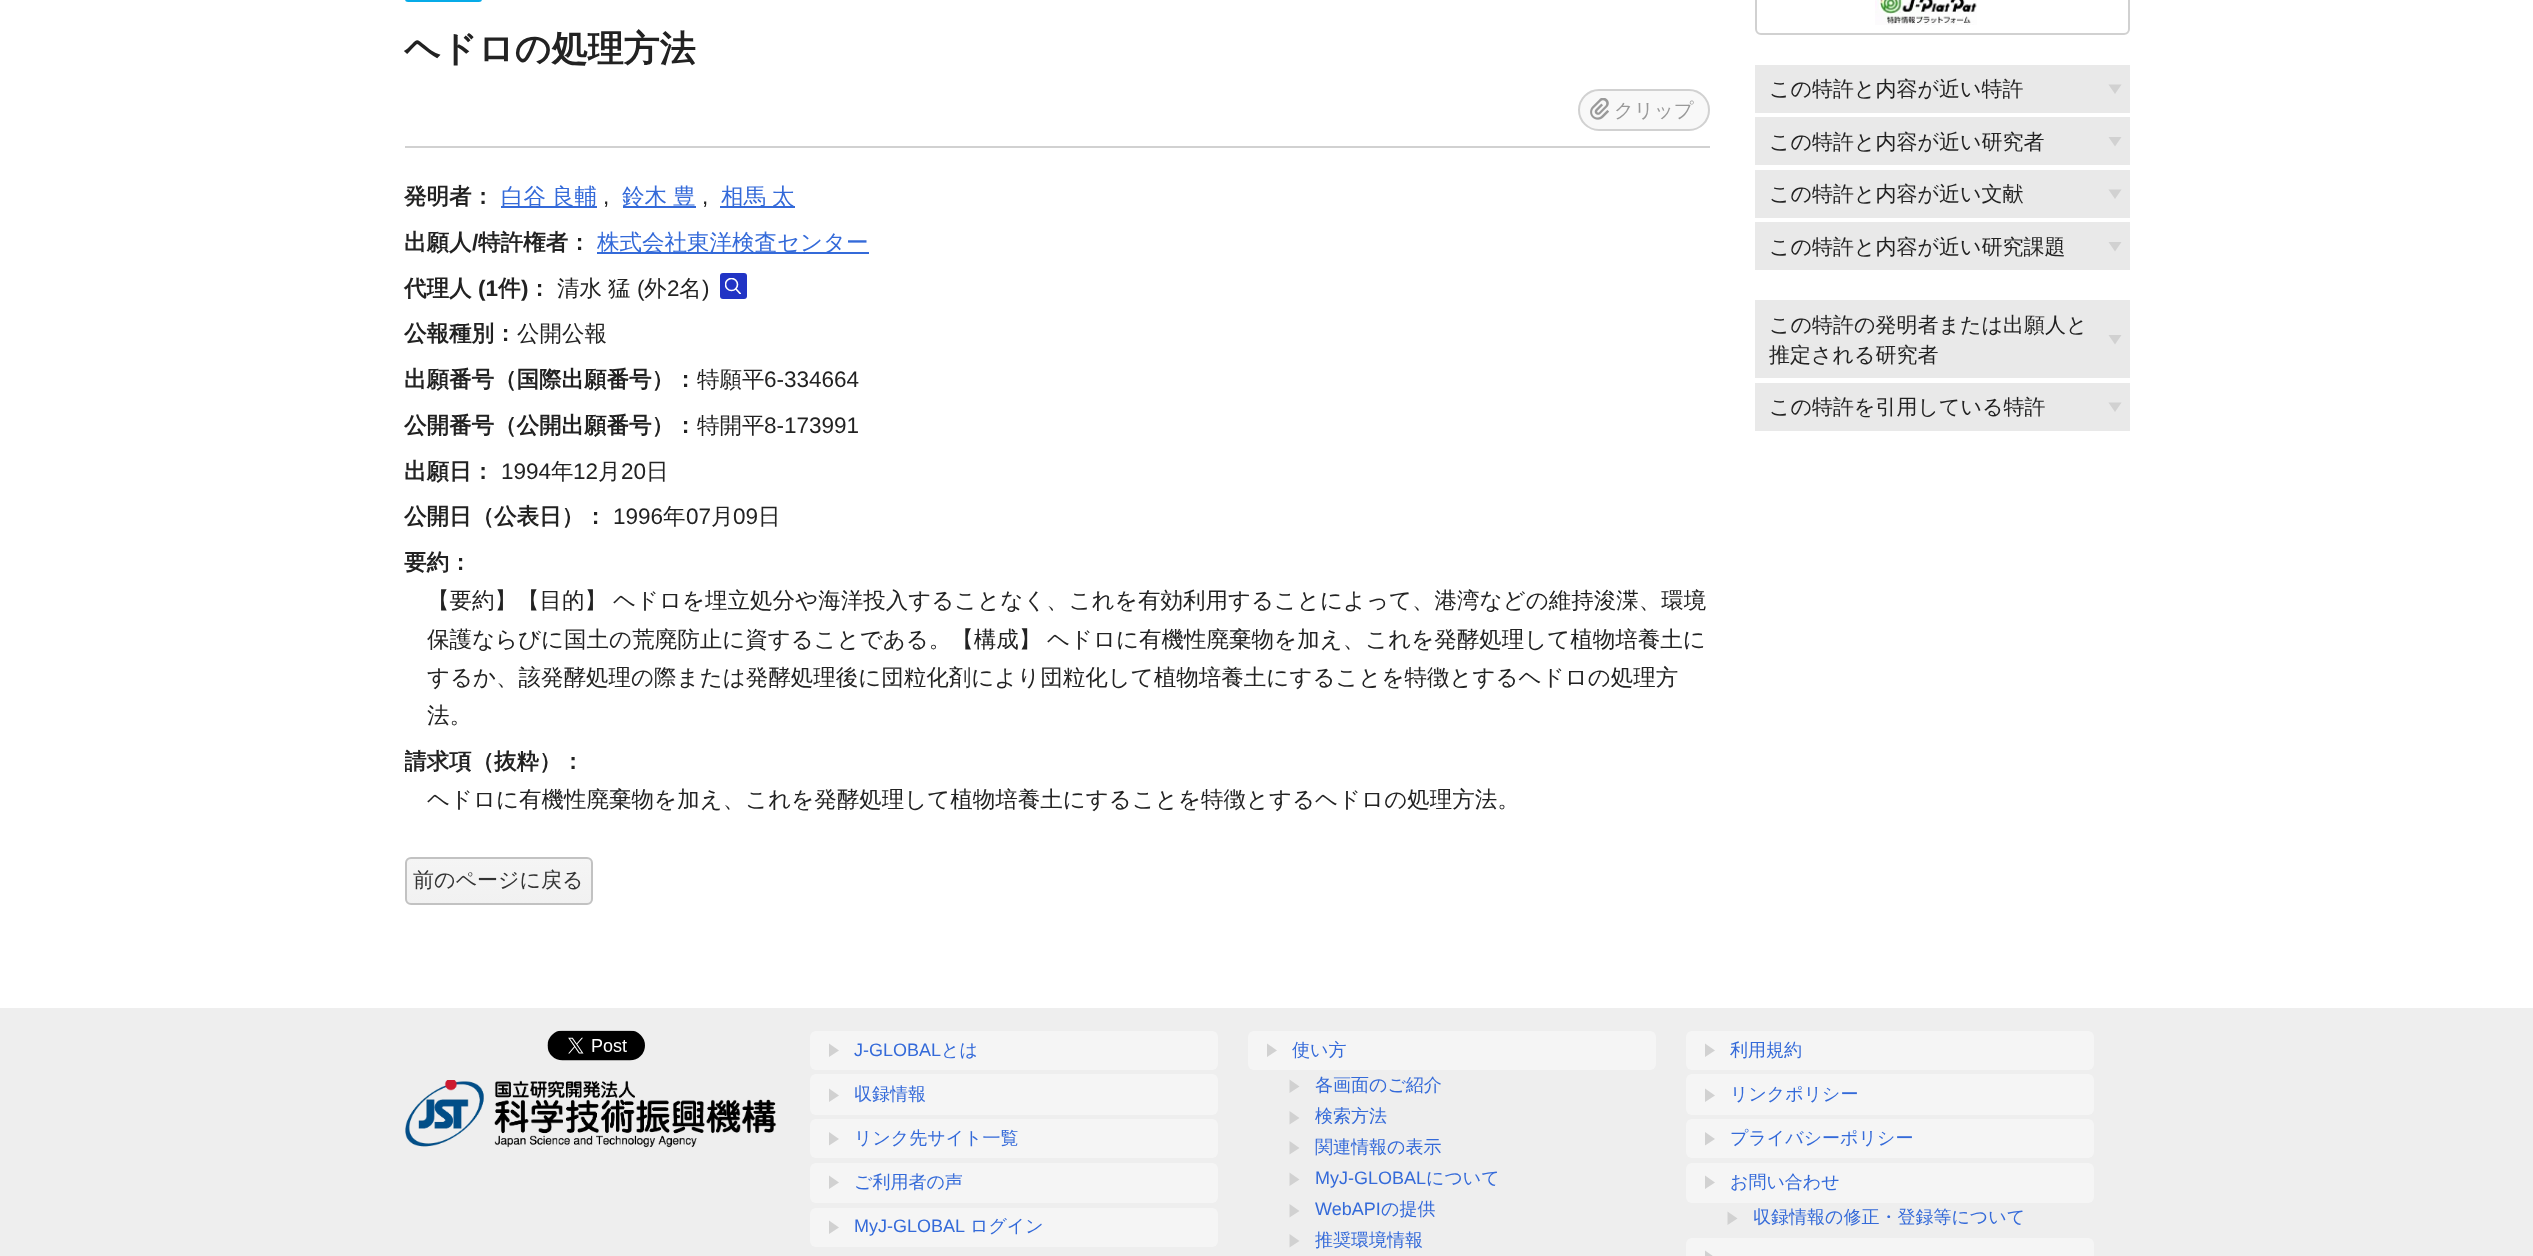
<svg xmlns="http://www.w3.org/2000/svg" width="2533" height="1256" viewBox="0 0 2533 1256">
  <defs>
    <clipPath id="clip1"><path d="M725 278h16v16H725z"/></clipPath>
    <clipPath id="clip2"><rect x="405" y="857" width="188" height="48" rx="6"/></clipPath>
    <linearGradient id="g1" gradientUnits="userSpaceOnUse" x1="499" y1="858" x2="499" y2="903"><stop offset="0" stop-color="#f5f5f5"/><stop offset="1" stop-color="#f1f1f1"/></linearGradient>
    <clipPath id="clip3"><path d="M405 0h1305v933H405z"/></clipPath>
  </defs>
  <rect width="100%" height="100%" fill="#fff"/>
  <path d="M405 146h1305v2H405z" fill="#d1d1d1"/>
  <rect x="405" y="-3" width="77" height="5" rx="3" fill="#06abe8"/>
  <rect x="1578" y="89" width="132" height="42" rx="21" fill="#f8f8f8"/>
  <image x="1590" y="98" width="19" height="22" href="img/1.png"/>
  <rect x="1579" y="90" width="130" height="40" rx="20" fill="none" stroke="#d1d1d1" stroke-width="2"/>
  <path d="M501 206h96v2H501z" fill="#346ad9"/>
  <path d="M623 206h73v2H623z" fill="#346ad9"/>
  <path d="M720 206h75v2H720z" fill="#346ad9"/>
  <path d="M597 252h272v2H597z" fill="#346ad9"/>
  <rect x="720" y="273" width="27" height="26" rx="3" fill="#2134c5"/>
  <g clip-path="url(#clip1)">
    <circle cx="731.5" cy="284.5" r="6" fill="none" stroke="#fff" stroke-width="1.6"/>
    <path d="M736 289L740.5 294" fill="none" stroke="#fff" stroke-width="1.6" stroke-linecap="round" stroke-linejoin="round"/>
  </g>
  <g clip-path="url(#clip2)">
    <path d="M405 858h188v45H405z" fill="url(#g1)"/>
  </g>
  <rect x="406" y="858" width="186" height="46" rx="5" fill="none" stroke="#c2c2c2" stroke-width="2"/>
  <rect x="1756" y="-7" width="373" height="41" rx="5" fill="none" stroke="#d1d1d1" stroke-width="2"/>
  <image x="1875" y="0" width="102" height="25" href="img/2.png"/>
  <path d="M1755 65h375v48H1755z" fill="#e9e9e9"/>
  <path d="M2121.5 84.5L2115 94L2108.5 84.5Z" fill="#d1d1d1"/>
  <path d="M1755 117h375v48H1755z" fill="#e9e9e9"/>
  <path d="M2121.5 137L2115 146.5L2108.5 137Z" fill="#d1d1d1"/>
  <path d="M1755 170h375v48H1755z" fill="#e9e9e9"/>
  <path d="M2121.5 189.5L2115 199L2108.5 189.5Z" fill="#d1d1d1"/>
  <path d="M1755 222h375v48H1755z" fill="#e9e9e9"/>
  <path d="M2121.5 242L2115 251.5L2108.5 242Z" fill="#d1d1d1"/>
  <path d="M1755 300h375v78H1755z" fill="#e9e9e9"/>
  <path d="M2121.5 335L2115 344.5L2108.5 335Z" fill="#d1d1d1"/>
  <path d="M1755 383h375v48H1755z" fill="#e9e9e9"/>
  <path d="M2121.5 402.5L2115 412L2108.5 402.5Z" fill="#d1d1d1"/>
  <path d="M0 1008h2533v248H0z" fill="#eee"/>
  <image x="547" y="1030" width="98" height="31" href="img/3.png"/>
  <image x="405" y="1080" width="372" height="68" href="img/4.png"/>
  <rect x="810" y="1031" width="408" height="39" rx="6" fill="#f5f5f5"/>
  <path d="M829 1043.5L839 1050.5L829 1057Z" fill="#d1d1d1"/>
  <rect x="810" y="1074" width="408" height="41" rx="6" fill="#f5f5f5"/>
  <path d="M829 1088.5L839 1095.5L829 1102Z" fill="#d1d1d1"/>
  <rect x="810" y="1119" width="408" height="39" rx="6" fill="#f5f5f5"/>
  <path d="M829 1132L839 1139L829 1145.5Z" fill="#d1d1d1"/>
  <rect x="810" y="1163" width="408" height="40" rx="6" fill="#f5f5f5"/>
  <path d="M829 1175.5L839 1182.5L829 1189Z" fill="#d1d1d1"/>
  <rect x="810" y="1208" width="408" height="39" rx="6" fill="#f5f5f5"/>
  <path d="M829 1220.5L839 1227.5L829 1234Z" fill="#d1d1d1"/>
  <rect x="1248" y="1031" width="408" height="39" rx="6" fill="#f5f5f5"/>
  <path d="M1267 1043.5L1277 1050.5L1267 1057ZM1289.5 1079.5L1299.5 1086.5L1289.5 1093Z" fill="#d1d1d1"/>
  <path d="M1289.5 1111L1299.5 1118L1289.5 1124.5ZM1289.5 1141L1299.5 1148L1289.5 1154.5Z" fill="#d1d1d1"/>
  <path d="M1289.5 1172.5L1299.5 1179.5L1289.5 1186ZM1289.5 1204L1299.5 1211L1289.5 1217.5Z" fill="#d1d1d1"/>
  <path d="M1289.5 1234L1299.5 1241L1289.5 1247.5Z" fill="#d1d1d1"/>
  <rect x="1686" y="1031" width="408" height="39" rx="6" fill="#f5f5f5"/>
  <path d="M1705 1043.5L1715 1050.5L1705 1057Z" fill="#d1d1d1"/>
  <rect x="1686" y="1074" width="408" height="41" rx="6" fill="#f5f5f5"/>
  <path d="M1705 1088.5L1715 1095.5L1705 1102Z" fill="#d1d1d1"/>
  <rect x="1686" y="1119" width="408" height="39" rx="6" fill="#f5f5f5"/>
  <path d="M1705 1132L1715 1139L1705 1145.5Z" fill="#d1d1d1"/>
  <rect x="1686" y="1163" width="408" height="40" rx="6" fill="#f5f5f5"/>
  <path d="M1705 1175.5L1715 1182.5L1705 1189ZM1727.5 1211.5L1737.5 1218.5L1727.5 1225Z" fill="#d1d1d1"/>
  <rect x="1686" y="1238" width="408" height="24" rx="6" fill="#f5f5f5"/>
  <path d="M1705 1250.5L1715 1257.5L1705 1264Z" fill="#d1d1d1"/>
  <text x="404" y="61" font-family="WenQuanYi Zen Hei" font-size="36" font-weight="bold" fill="#222">ヘドロの処理方法</text>
  <text x="1614" y="117" font-family="WenQuanYi Zen Hei" font-size="19.5" font-weight="500" fill="#999">クリップ</text>
  <text x="404" y="204" font-family="WenQuanYi Zen Hei" font-size="22.5" font-weight="bold" fill="#222">発明者：</text>
  <g font-family="WenQuanYi Zen Hei" font-size="22.5" font-weight="500" fill="#346ad9">
    <text x="501" y="204">白谷</text>
    <text x="552" y="204">良輔</text>
  </g>
  <text x="603" y="204" font-family="Liberation Sans" font-size="22.5" fill="#222">,</text>
  <g font-family="WenQuanYi Zen Hei" font-size="22.5" font-weight="500" fill="#346ad9">
    <text x="622" y="204">鈴木</text>
    <text x="673" y="204">豊</text>
  </g>
  <text x="702" y="204" font-family="Liberation Sans" font-size="22.5" fill="#222">,</text>
  <g font-family="WenQuanYi Zen Hei" font-size="22.5" font-weight="500" fill="#346ad9">
    <text x="721" y="204">相馬</text>
    <text x="772" y="204">太</text>
  </g>
  <text x="404" y="250" font-family="WenQuanYi Zen Hei" font-size="22.5" font-weight="bold" fill="#222">出願人</text>
  <text x="472" y="250" font-family="Liberation Sans" font-size="22.5" font-weight="bold" fill="#222">/</text>
  <text x="478" y="250" font-family="WenQuanYi Zen Hei" font-size="22.5" font-weight="bold" fill="#222">特許権者：</text>
  <text x="597" y="250" font-family="WenQuanYi Zen Hei" font-size="22.5" font-weight="500" fill="#346ad9">株式会社東洋検査センター</text>
  <text x="404" y="296" font-family="WenQuanYi Zen Hei" font-size="22.5" font-weight="bold" fill="#222">代理人</text>
  <text x="478" y="296" font-family="Liberation Sans" font-size="22.5" font-weight="bold" fill="#222">(1</text>
  <text x="498" y="296" font-family="WenQuanYi Zen Hei" font-size="22.5" font-weight="bold" fill="#222">件</text>
  <text x="521" y="296" font-family="Liberation Sans" font-size="22.5" font-weight="bold" fill="#222">)</text>
  <text x="528" y="296" font-family="WenQuanYi Zen Hei" font-size="22.5" font-weight="bold" fill="#222">：</text>
  <g font-family="WenQuanYi Zen Hei" font-size="22.5" font-weight="500" fill="#222">
    <text x="557" y="296">清水</text>
    <text x="608" y="296">猛</text>
  </g>
  <text x="637" y="296" font-family="Liberation Sans" font-size="22.5" fill="#222">(</text>
  <text x="644" y="296" font-family="WenQuanYi Zen Hei" font-size="22.5" font-weight="500" fill="#222">外</text>
  <text x="667" y="296" font-family="Liberation Sans" font-size="22.5" fill="#222">2</text>
  <text x="679" y="296" font-family="WenQuanYi Zen Hei" font-size="22.5" font-weight="500" fill="#222">名</text>
  <text x="702" y="296" font-family="Liberation Sans" font-size="22.5" fill="#222">)</text>
  <text x="404" y="341" font-family="WenQuanYi Zen Hei" font-size="22.5" font-weight="bold" fill="#222">公報種別：</text>
  <text x="517" y="341" font-family="WenQuanYi Zen Hei" font-size="22.5" font-weight="500" fill="#222">公開公報</text>
  <text x="404" y="387" font-family="WenQuanYi Zen Hei" font-size="22.5" font-weight="bold" fill="#222">出願番号（国際出願番号）：</text>
  <text x="697" y="387" font-family="WenQuanYi Zen Hei" font-size="22.5" font-weight="500" fill="#222">特願平</text>
  <text x="764" y="387" font-family="Liberation Sans" font-size="22.5" fill="#222">6-334664</text>
  <text x="404" y="433" font-family="WenQuanYi Zen Hei" font-size="22.5" font-weight="bold" fill="#222">公開番号（公開出願番号）：</text>
  <text x="697" y="433" font-family="WenQuanYi Zen Hei" font-size="22.5" font-weight="500" fill="#222">特開平</text>
  <text x="764" y="433" font-family="Liberation Sans" font-size="22.5" fill="#222">8-173991</text>
  <text x="404" y="479" font-family="WenQuanYi Zen Hei" font-size="22.5" font-weight="bold" fill="#222">出願日：</text>
  <text x="501" y="479" font-family="Liberation Sans" font-size="22.5" fill="#222">1994</text>
  <text x="551" y="479" font-family="WenQuanYi Zen Hei" font-size="22.5" font-weight="500" fill="#222">年</text>
  <text x="573" y="479" font-family="Liberation Sans" font-size="22.5" fill="#222">12</text>
  <text x="598" y="479" font-family="WenQuanYi Zen Hei" font-size="22.5" font-weight="500" fill="#222">月</text>
  <text x="621" y="479" font-family="Liberation Sans" font-size="22.5" fill="#222">20</text>
  <text x="646" y="479" font-family="WenQuanYi Zen Hei" font-size="22.5" font-weight="500" fill="#222">日</text>
  <text x="404" y="524" font-family="WenQuanYi Zen Hei" font-size="22.5" font-weight="bold" fill="#222">公開日（公表日）：</text>
  <text x="613" y="524" font-family="Liberation Sans" font-size="22.5" fill="#222">1996</text>
  <text x="663" y="524" font-family="WenQuanYi Zen Hei" font-size="22.5" font-weight="500" fill="#222">年</text>
  <text x="686" y="524" font-family="Liberation Sans" font-size="22.5" fill="#222">07</text>
  <text x="711" y="524" font-family="WenQuanYi Zen Hei" font-size="22.5" font-weight="500" fill="#222">月</text>
  <text x="733" y="524" font-family="Liberation Sans" font-size="22.5" fill="#222">09</text>
  <text x="758" y="524" font-family="WenQuanYi Zen Hei" font-size="22.5" font-weight="500" fill="#222">日</text>
  <text x="404" y="570" font-family="WenQuanYi Zen Hei" font-size="22.5" font-weight="bold" fill="#222">要約：</text>
  <g font-family="WenQuanYi Zen Hei" font-size="22.5" font-weight="500" fill="#222">
    <text x="427" y="608">【要約】【目的】</text>
    <text x="613" y="608">ヘドロを埋立処分や海洋投入することなく、これを有効利用することによって、港湾などの維持浚渫、環境</text>
    <text x="427" y="647">保護ならびに国土の荒廃防止に資することである。【構成】</text>
    <text x="1047" y="647">ヘドロに有機性廃棄物を加え、これを発酵処理して植物培養土に</text>
    <text x="427" y="685">するか、該発酵処理の際または発酵処理後に団粒化剤により団粒化して植物培養土にすることを特徴とするヘドロの処理方</text>
    <text x="427" y="723">法。</text>
  </g>
  <g clip-path="url(#clip3)">
    <text x="404" y="769" font-family="WenQuanYi Zen Hei" font-size="22.5" font-weight="bold" fill="#222">請求項（抜粋）：</text>
  </g>
  <text x="427" y="807" font-family="WenQuanYi Zen Hei" font-size="22.5" font-weight="500" fill="#222">ヘドロに有機性廃棄物を加え、これを発酵処理して植物培養土にすることを特徴とするヘドロの処理方法。</text>
  <text x="413" y="887" font-family="WenQuanYi Zen Hei" font-size="21" font-weight="500" fill="#333">前のページに戻る</text>
  <g font-family="WenQuanYi Zen Hei" font-size="21" font-weight="500" fill="#222">
    <text x="1769" y="96">この特許と内容が近い特許</text>
    <text x="1769" y="149">この特許と内容が近い研究者</text>
    <text x="1769" y="201">この特許と内容が近い文献</text>
    <text x="1769" y="254">この特許と内容が近い研究課題</text>
    <text x="1769" y="332">この特許の発明者または出願人と</text>
    <text x="1769" y="362">推定される研究者</text>
    <text x="1769" y="414">この特許を引用している特許</text>
  </g>
  <text x="854" y="1056" font-family="Liberation Sans" font-size="18" fill="#346ad9">J-GLOBAL</text>
  <g font-family="WenQuanYi Zen Hei" font-size="18" font-weight="500" fill="#346ad9">
    <text x="941" y="1056">とは</text>
    <text x="854" y="1100">収録情報</text>
    <text x="854" y="1144">リンク先サイト一覧</text>
    <text x="854" y="1188">ご利用者の声</text>
  </g>
  <text x="854" y="1232" font-family="Liberation Sans" font-size="18" fill="#346ad9">MyJ-GLOBAL</text>
  <g font-family="WenQuanYi Zen Hei" font-size="18" font-weight="500" fill="#346ad9">
    <text x="970" y="1232">ログイン</text>
    <text x="1292" y="1056">使い方</text>
    <text x="1315" y="1091">各画面のご紹介</text>
    <text x="1315" y="1122">検索方法</text>
    <text x="1315" y="1153">関連情報の表示</text>
  </g>
  <text x="1315" y="1184" font-family="Liberation Sans" font-size="18" fill="#346ad9">MyJ-GLOBAL</text>
  <text x="1426" y="1184" font-family="WenQuanYi Zen Hei" font-size="18" font-weight="500" fill="#346ad9">について</text>
  <text x="1315" y="1215" font-family="Liberation Sans" font-size="18" fill="#346ad9">WebAPI</text>
  <g font-family="WenQuanYi Zen Hei" font-size="18" font-weight="500" fill="#346ad9">
    <text x="1381" y="1215">の提供</text>
    <text x="1315" y="1246">推奨環境情報</text>
    <text x="1730" y="1056">利用規約</text>
    <text x="1730" y="1100">リンクポリシー</text>
    <text x="1730" y="1144">プライバシーポリシー</text>
    <text x="1730" y="1188">お問い合わせ</text>
    <text x="1753" y="1223">収録情報の修正・登録等について</text>
  </g>
</svg>
